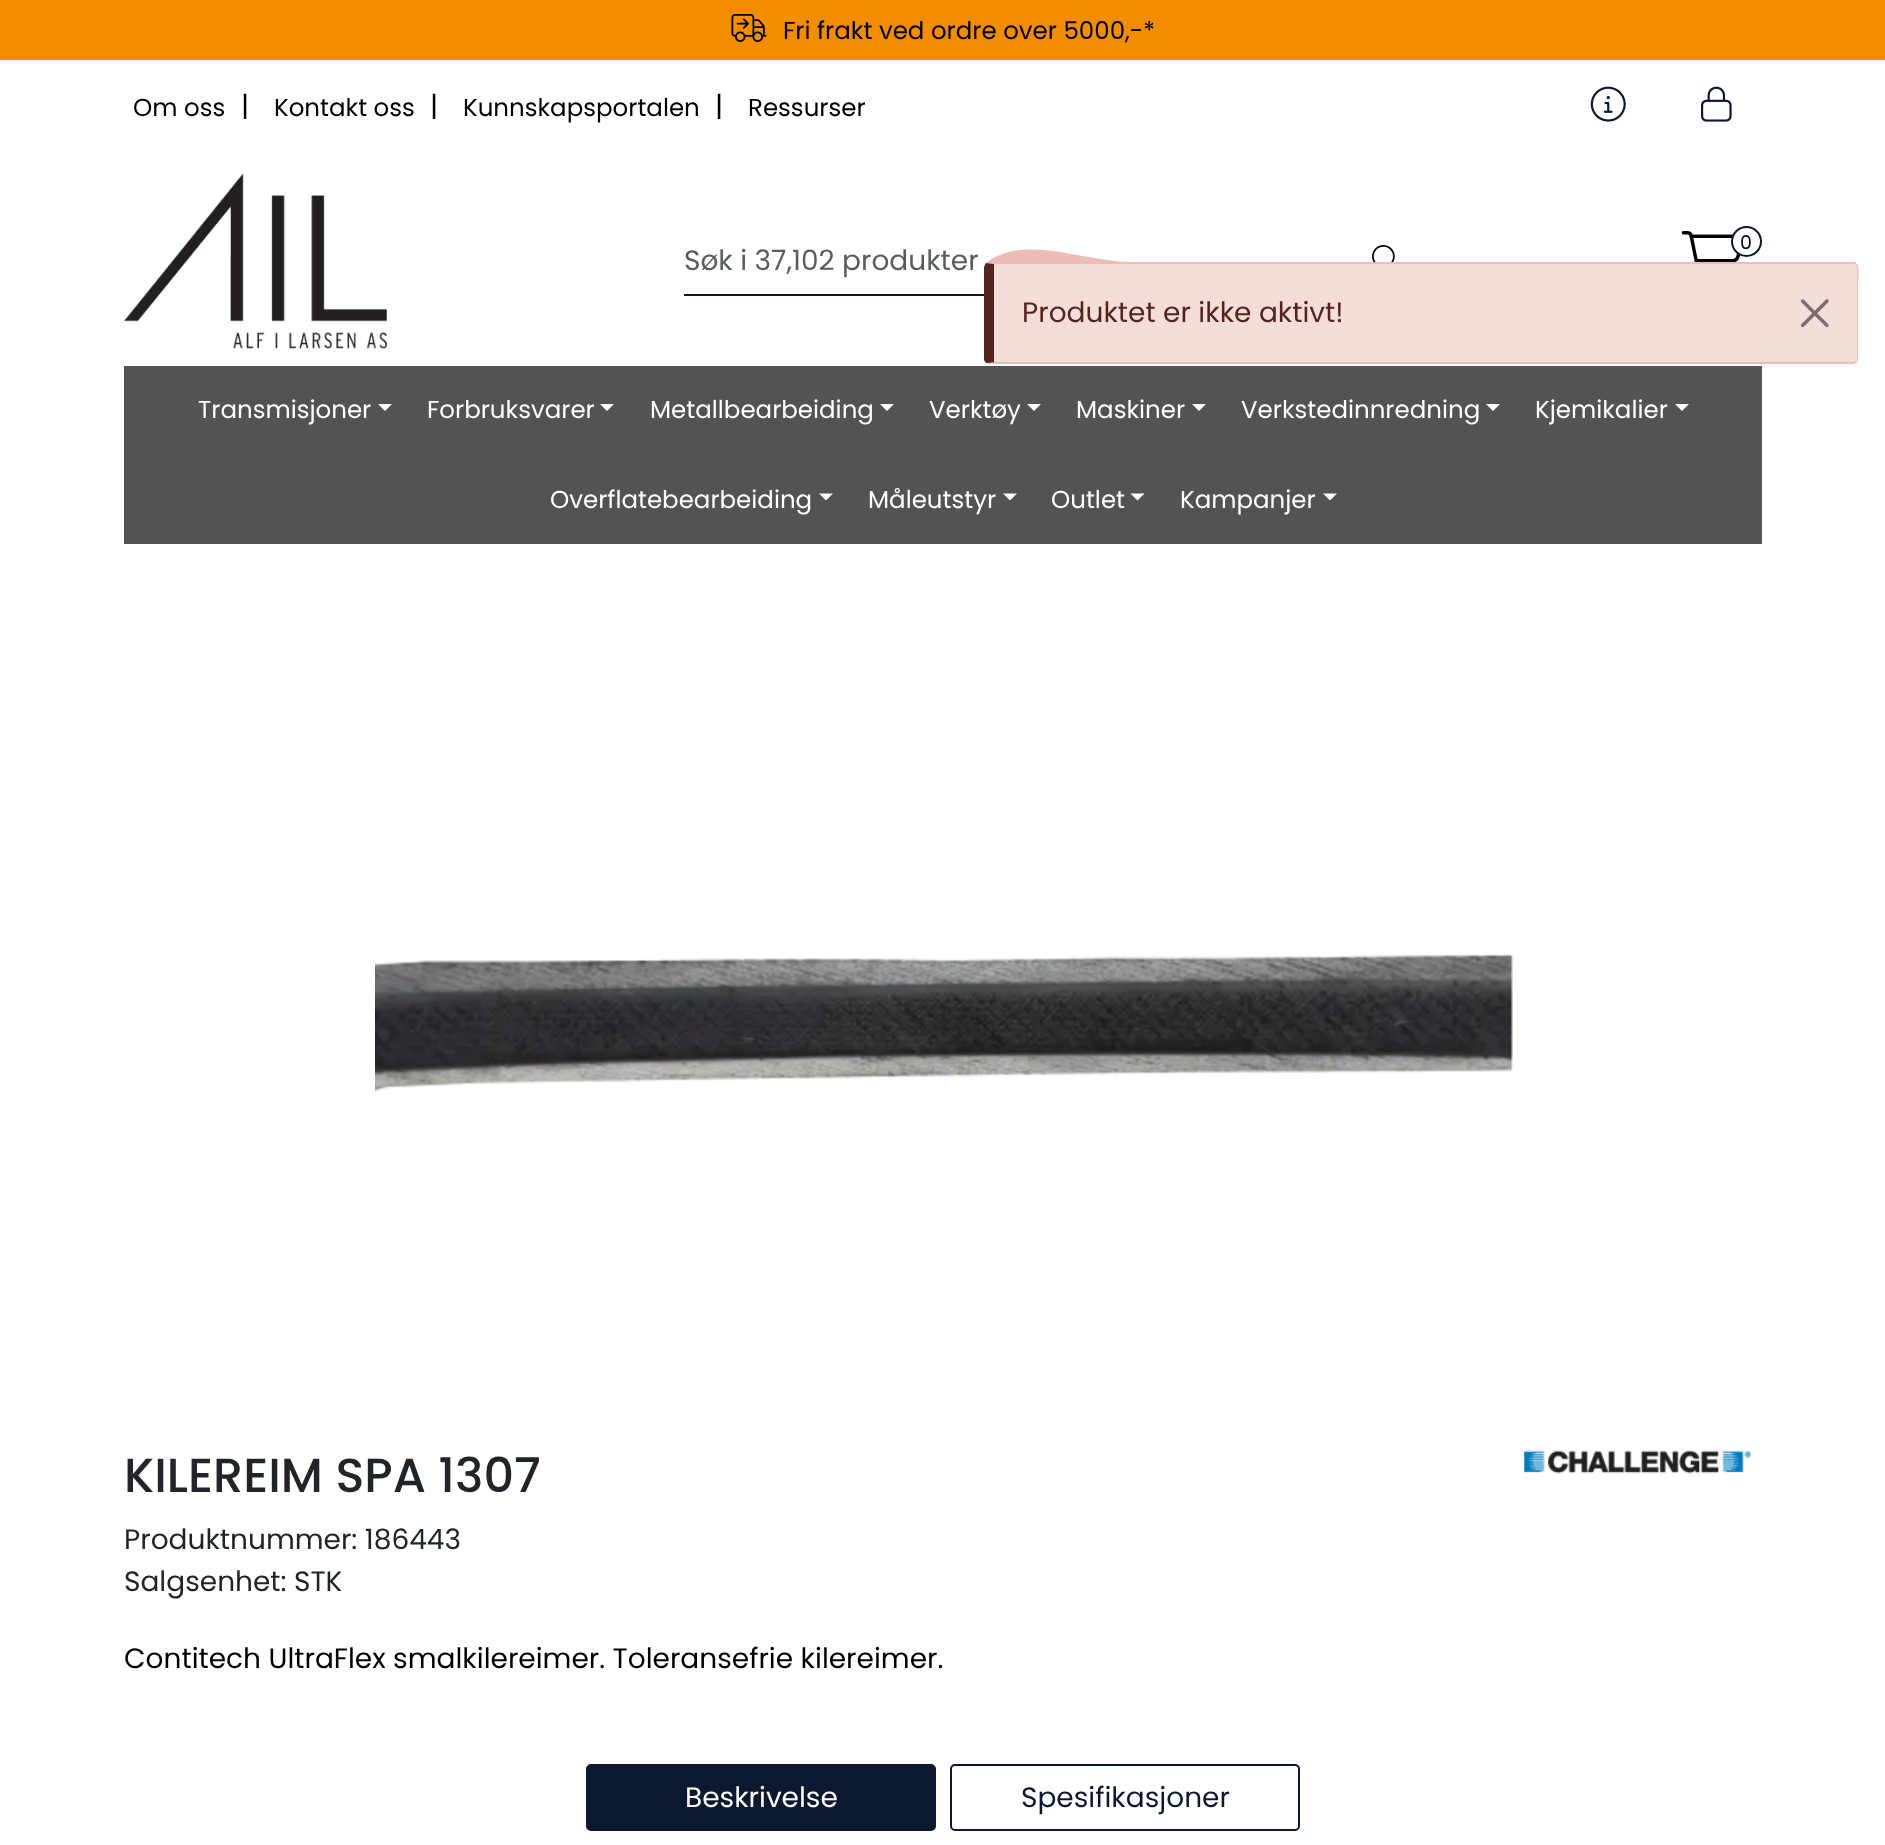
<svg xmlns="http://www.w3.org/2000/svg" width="1885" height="1845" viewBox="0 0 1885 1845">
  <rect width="100%" height="100%" fill="#fff"/>
  <path d="M0 0h1885v60H0z" fill="#f28c00"/>
  <image x="731" y="14" width="36" height="28" href="img/1.png"/>
  <image x="1590" y="86" width="36" height="36" href="img/2.png"/>
  <image x="1701" y="86" width="31" height="36" href="img/3.png"/>
  <image x="124" y="173" width="263" height="176" href="img/4.png"/>
  <image x="1681" y="231" width="60" height="31" href="img/5.png"/>
  <circle cx="1746.5" cy="241.5" r="14.5" fill="#fff" stroke="#0a192f" stroke-width="2"/>
  <path d="M684 294h300v2H684z" fill="#0a192f"/>
  <image x="1372" y="245" width="23" height="17" href="img/6.png"/>
  <path d="M124 366h1638v178H124z" fill="#535353"/>
  <path d="M378 404H392L385 411Z" fill="#fff"/>
  <path d="M600 404H614L607 411Z" fill="#fff"/>
  <path d="M880 404H894L887 411Z" fill="#fff"/>
  <path d="M1027 404H1041L1034 411Z" fill="#fff"/>
  <path d="M1192 404H1206L1199 411Z" fill="#fff"/>
  <path d="M1486 404H1500L1493 411Z" fill="#fff"/>
  <path d="M1675 404H1689L1682 411Z" fill="#fff"/>
  <path d="M819 493.5H833L826 500.5Z" fill="#fff"/>
  <path d="M1003 493.5H1017L1010 500.5Z" fill="#fff"/>
  <path d="M1130.5 493.5H1144.5L1137.5 500.5Z" fill="#fff"/>
  <path d="M1323 493.5H1337L1330 500.5Z" fill="#fff"/>
  <path d="M994 264H1853C1855 264 1857 266 1857 268V359C1857 361 1855 362 1853 362H994Z" fill="#f5deda"/>
  <path d="M994 264L986 263C1024 233 1083 262 1132 262H1855L1857 264L1856 265L1853 264Z" fill="#ebbdb5"/>
  <path d="M1857 264C1860 269 1858 283 1858 283V359L1857 362L1856 361L1857 359V268L1856 265Z" fill="#ebbdb5"/>
  <path d="M989 364H1853C1855 364 1856 363 1857 362L1856 361L1853 362H996L987 363Z" fill="#ebbdb5"/>
  <path d="M987 363H986L984 360V268C984 266 985 264 986 263L994 264V362H996Z" fill="#52241c"/>
  <image x="1801" y="299" width="28" height="28" href="img/7.png"/>
  <image x="375" y="954" width="1138" height="138" href="img/8.png"/>
  <image x="1524" y="1450" width="228" height="24" href="img/9.png"/>
  <rect x="587" y="1765" width="348" height="65" rx="4" fill="#0a192f" stroke="#0a192f" stroke-width="2"/>
  <rect x="951" y="1765" width="348" height="65" rx="4" fill="none" stroke="#0a192f" stroke-width="2"/>
  <g font-family="Poppins" font-size="24.5" fill="#000">
    <text x="783" y="39">Fri frakt ved ordre over 5000,-*</text>
    <text x="133" y="116">Om oss</text>
  </g>
  <text x="241" y="116" font-family="Poppins" font-size="28" fill="#000">|</text>
  <text x="274" y="116" font-family="Poppins" font-size="24.5" fill="#000">Kontakt oss</text>
  <text x="430" y="116" font-family="Poppins" font-size="28" fill="#000">|</text>
  <text x="463" y="116" font-family="Poppins" font-size="24.5" fill="#000">Kunnskapsportalen</text>
  <text x="715" y="116" font-family="Poppins" font-size="28" fill="#000">|</text>
  <text x="748" y="116" font-family="Poppins" font-size="24.5" fill="#000">Ressurser</text>
  <text x="1740" y="249" font-family="Poppins" font-size="19" fill="#000">0</text>
  <text x="684" y="270" font-family="Poppins" font-size="28" fill="#595c5f">Søk i 37,102 produkter</text>
  <g font-family="Poppins" font-size="24.5" fill="#fff">
    <text x="198" y="418">Transmisjoner</text>
    <text x="427" y="418">Forbruksvarer</text>
    <text x="650" y="418">Metallbearbeiding</text>
    <text x="929" y="418">Verktøy</text>
    <text x="1076" y="418">Maskiner</text>
    <text x="1241" y="418">Verkstedinnredning</text>
    <text x="1535" y="418">Kjemikalier</text>
    <text x="550" y="508">Overflatebearbeiding</text>
    <text x="868" y="508">Måleutstyr</text>
    <text x="1051" y="508">Outlet</text>
    <text x="1180" y="508">Kampanjer</text>
  </g>
  <text x="1022" y="322" font-family="Poppins" font-size="28" fill="#52241c">Produktet er ikke aktivt!</text>
  <text x="124" y="1492" font-family="Poppins" font-size="47.75" font-weight="500" fill="#212529">KILEREIM SPA 1307</text>
  <g font-family="Poppins" font-size="28" fill="#212529">
    <text x="124" y="1549">Produktnummer: 186443</text>
    <text x="124" y="1591">Salgsenhet: STK</text>
  </g>
  <text x="124" y="1668" font-family="Poppins" font-size="28" fill="#000">Contitech UltraFlex smalkilereimer. Toleransefrie kilereimer.</text>
  <text x="685" y="1807" font-family="Poppins" font-size="28" fill="#fff">Beskrivelse</text>
  <text x="1021" y="1807" font-family="Poppins" font-size="28" fill="#0a192f">Spesifikasjoner</text>
</svg>
